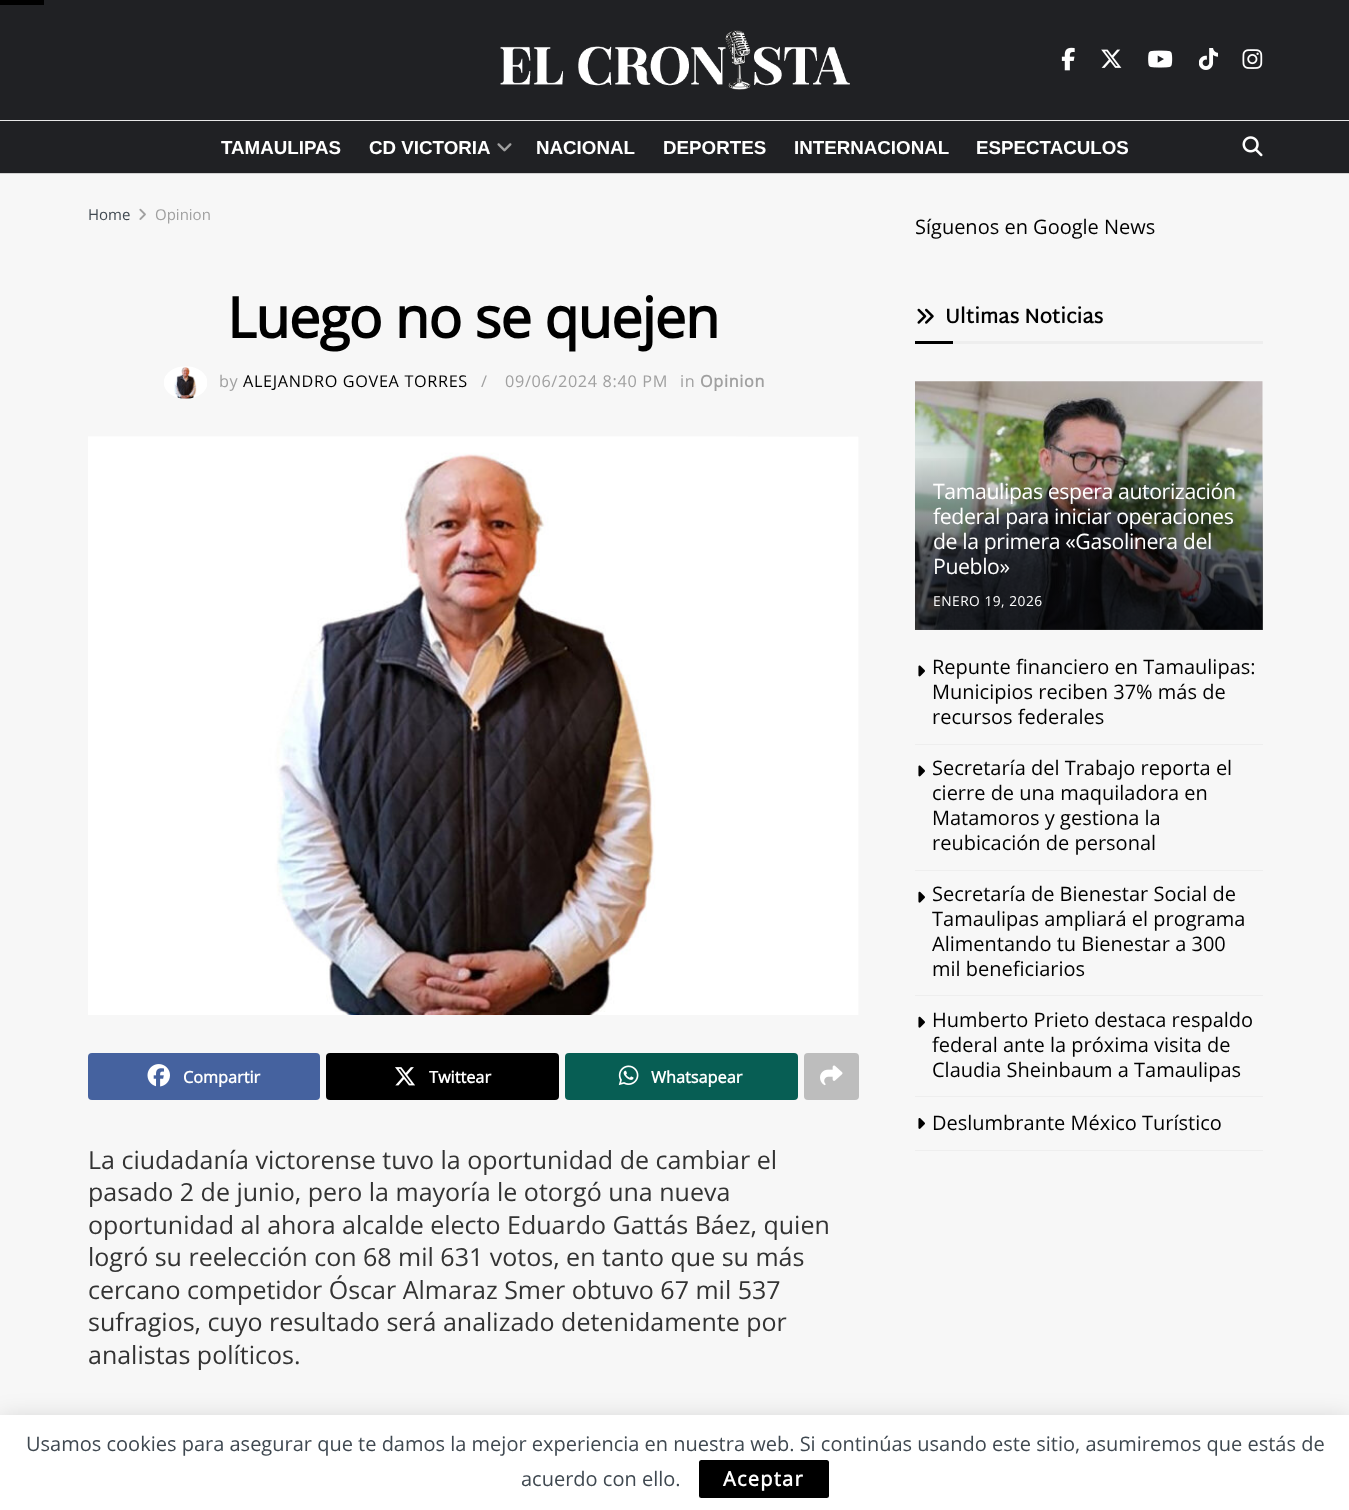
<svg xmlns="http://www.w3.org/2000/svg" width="1349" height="1510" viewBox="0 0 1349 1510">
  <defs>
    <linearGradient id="g1" gradientUnits="userSpaceOnUse" x1="1089" y1="454" x2="1089" y2="630"><stop offset="0" stop-color="#000" stop-opacity="0"/><stop offset="0.7" stop-color="#000" stop-opacity="0.65"/></linearGradient>
  </defs>
  <rect width="100%" height="100%" fill="#f7f7f7"/>
  <path d="M0 0h1349v120H0z" fill="#202124"/>
  <path d="M0 0h44v5H0z" fill="#000"/>
  <path d="M0 120h1349v1H0z" fill="#e8e8e8"/>
  <image x="500" y="30" width="350" height="60" href="img/1.png"/>
  <image x="1061" y="47" width="14" height="24" href="img/2.png"/>
  <image x="1101" y="49" width="21" height="19" href="img/3.png"/>
  <image x="1148" y="50" width="25" height="18" href="img/4.png"/>
  <image x="1199" y="48" width="19" height="22" href="img/5.png"/>
  <image x="1242" y="49" width="21" height="20" href="img/6.png"/>
  <path d="M0 121h1349v52H0z" fill="#202124"/>
  <path d="M0 173h1349v1H0z" fill="#d1d1d1"/>
  <image x="497" y="143" width="15" height="9" href="img/7.png"/>
  <image x="1242" y="136" width="21" height="21" href="img/8.png"/>
  <image x="139" y="208" width="7" height="12" href="img/9.png"/>
  <image x="164" y="366" width="43" height="33" href="img/10.png"/>
  <image x="736" y="436" width="123" height="579" href="img/12.png"/>
  <image x="88" y="436" width="771" height="579" href="img/11.png"/>
  <rect x="88" y="1053" width="232" height="47" rx="4" fill="#45629f"/>
  <image x="147" y="1064" width="23" height="23" href="img/13.png"/>
  <rect x="326" y="1053" width="233" height="47" rx="4" fill="#000"/>
  <image x="395" y="1067" width="20" height="19" href="img/14.png"/>
  <rect x="565" y="1053" width="233" height="47" rx="4" fill="#075e54"/>
  <image x="618" y="1065" width="21" height="21" href="img/15.png"/>
  <rect x="804" y="1053" width="55" height="47" rx="4" fill="#bdbdbd"/>
  <image x="820" y="1065" width="23" height="21" href="img/16.png"/>
  <path d="M953 341h310v3H953z" fill="#eee"/>
  <image x="917" y="308" width="17" height="16" href="img/17.png"/>
  <path d="M915 341h38v3H915z" fill="#000"/>
  <image x="1208" y="381" width="54" height="249" href="img/19.png"/>
  <image x="915" y="381" width="348" height="249" href="img/18.png"/>
  <path d="M915 458h348v172H915z" fill="url(#g1)"/>
  <path d="M915 744h348v1H915z" fill="#eee"/>
  <image x="918" y="665" width="7" height="12" href="img/20.png"/>
  <path d="M915 870h348v1H915z" fill="#eee"/>
  <image x="918" y="765" width="7" height="12" href="img/20.png"/>
  <path d="M915 995h348v1H915z" fill="#eee"/>
  <image x="918" y="891" width="7" height="12" href="img/21.png"/>
  <path d="M915 1096h348v1H915z" fill="#eee"/>
  <image x="918" y="1016" width="7" height="12" href="img/21.png"/>
  <path d="M915 1150h348v1H915z" fill="#eee"/>
  <image x="918" y="1118" width="7" height="11" href="img/22.png"/>
  <path d="M0 1418h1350v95H0z" fill="#00000026" filter="blur(12.5px)"/>
  <path d="M0 1415h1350v95H0z" fill="#00000033" filter="blur(0.5px)"/>
  <path d="M0 1415h1349v95H0z" fill="#fff"/>
  <rect x="699" y="1460" width="130" height="38" rx="2.5" fill="#000"/>
  <g font-family="Liberation Sans" font-size="18.75" font-weight="bold" fill="#fff">
    <text x="221" y="154">TAMAULIPAS</text>
    <text x="369" y="154">CD VICTORIA</text>
    <text x="536" y="154">NACIONAL</text>
    <text x="663" y="154">DEPORTES</text>
    <text x="794" y="154">INTERNACIONAL</text>
    <text x="976" y="154">ESPECTACULOS</text>
  </g>
  <text x="88" y="220" font-family="Open Sans" font-size="15" fill="#3f4850">Home</text>
  <text x="155" y="220" font-family="Open Sans" font-size="15" fill="#a0a0a0">Opinion</text>
  <text x="227" y="338" font-family="Open Sans" font-size="56.25" font-weight="bold" letter-spacing="-1.1" fill="#000">Luego no se quejen</text>
  <text x="219" y="387" font-family="Open Sans" font-size="16.25" letter-spacing="0.65" fill="#a0a0a0">by</text>
  <text x="243" y="387" font-family="Open Sans" font-size="16.25" letter-spacing="0.65" fill="#000">ALEJANDRO GOVEA TORRES</text>
  <g font-family="Open Sans" font-size="16.25" letter-spacing="0.65" fill="#a0a0a0">
    <text x="481" y="387">/</text>
    <text x="505" y="387">09/06/2024 8:40 PM</text>
    <text x="680" y="387">in</text>
  </g>
  <text x="700" y="387" font-family="Open Sans" font-size="16.25" font-weight="bold" letter-spacing="0.65" fill="#a0a0a0">Opinion</text>
  <g font-family="Open Sans" font-size="16.25" font-weight="bold" fill="#fff">
    <text x="183" y="1083">Compartir</text>
    <text x="429" y="1083">Twittear</text>
    <text x="651" y="1083">Whatsapear</text>
  </g>
  <g font-family="Open Sans" font-size="25" fill="#333">
    <text x="88" y="1169">La ciudadanía victorense tuvo la oportunidad de cambiar el</text>
    <text x="88" y="1201">pasado 2 de junio, pero la mayoría le otorgó una nueva</text>
    <text x="88" y="1234">oportunidad al ahora alcalde electo Eduardo Gattás Báez, quien</text>
    <text x="88" y="1266">logró su reelección con 68 mil 631 votos, en tanto que su más</text>
    <text x="88" y="1299">cercano competidor Óscar Almaraz Smer obtuvo 67 mil 537</text>
    <text x="88" y="1331">sufragios, cuyo resultado será analizado detenidamente por</text>
    <text x="88" y="1364">analistas políticos.</text>
  </g>
  <text x="915" y="234" font-family="Open Sans" font-size="20" fill="#000">Síguenos en Google News</text>
  <text x="945" y="323" font-family="Martel Sans" font-size="20" font-weight="bold" fill="#000">Ultimas Noticias</text>
  <g font-family="Open Sans" font-size="21.25" letter-spacing="-0.4" fill="#fff">
    <text x="933" y="499">Tamaulipas espera autorización</text>
    <text x="933" y="524">federal para iniciar operaciones</text>
    <text x="933" y="549">de la primera «Gasolinera del</text>
    <text x="933" y="574">Pueblo»</text>
  </g>
  <text x="933" y="606" font-family="Open Sans" font-size="13.75" letter-spacing="0.5" fill="#fff">ENERO 19, 2026</text>
  <g font-family="Open Sans" font-size="20" fill="#000">
    <text x="932" y="674">Repunte financiero en Tamaulipas:</text>
    <text x="932" y="699">Municipios reciben 37% más de</text>
    <text x="932" y="724">recursos federales</text>
    <text x="932" y="775">Secretaría del Trabajo reporta el</text>
    <text x="932" y="800">cierre de una maquiladora en</text>
    <text x="932" y="825">Matamoros y gestiona la</text>
    <text x="932" y="850">reubicación de personal</text>
    <text x="932" y="901">Secretaría de Bienestar Social de</text>
    <text x="932" y="926">Tamaulipas ampliará el programa</text>
    <text x="932" y="951">Alimentando tu Bienestar a 300</text>
    <text x="932" y="976">mil beneficiarios</text>
    <text x="932" y="1027">Humberto Prieto destaca respaldo</text>
    <text x="932" y="1052">federal ante la próxima visita de</text>
    <text x="932" y="1077">Claudia Sheinbaum a Tamaulipas</text>
    <text x="932" y="1130">Deslumbrante México Turístico</text>
  </g>
  <g font-family="Open Sans" font-size="20" fill="#3f4850">
    <text x="26" y="1451">Usamos cookies para asegurar que te damos la mejor experiencia en nuestra web. Si continúas usando este sitio, asumiremos que estás de</text>
    <text x="521" y="1486">acuerdo con ello.</text>
  </g>
  <text x="723" y="1486" font-family="Open Sans" font-size="20" font-weight="bold" letter-spacing="1.25" fill="#fff">Aceptar</text>
</svg>
